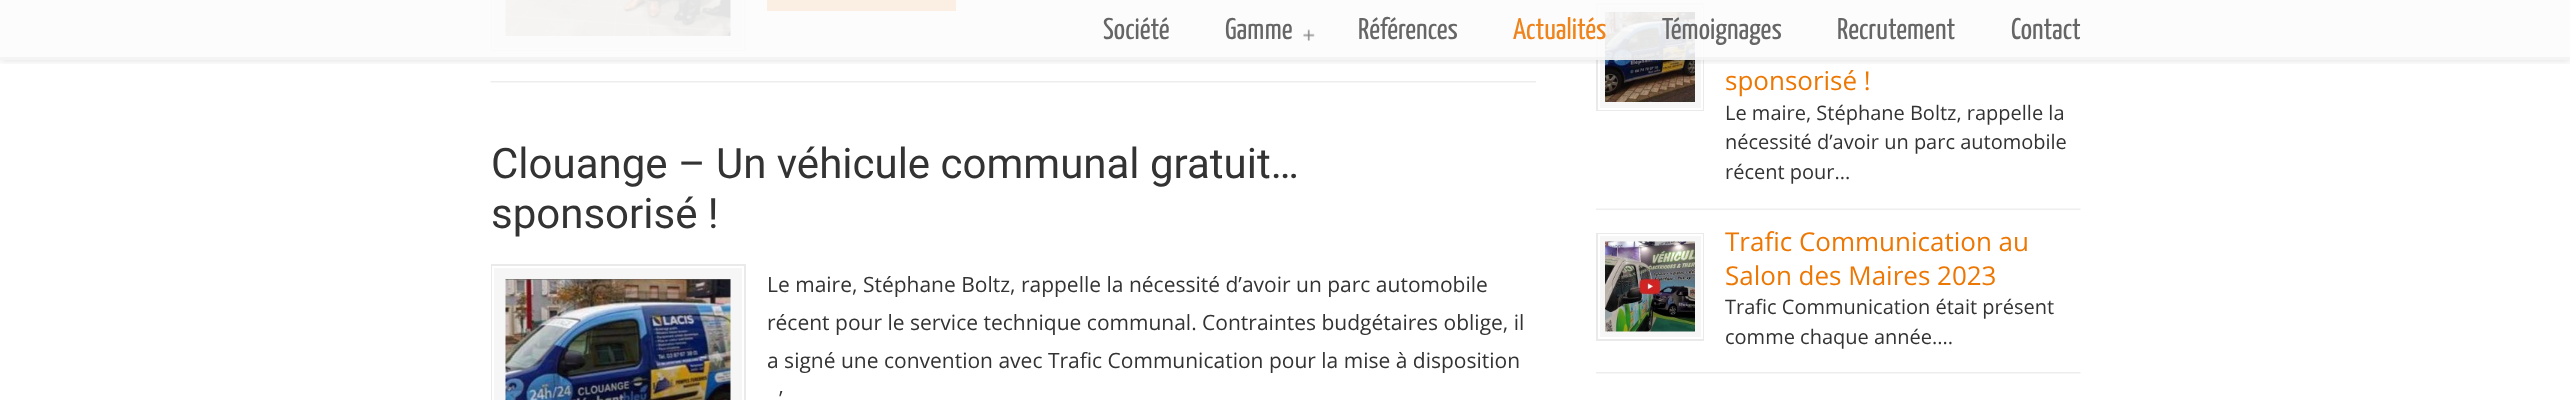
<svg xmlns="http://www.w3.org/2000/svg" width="2570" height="400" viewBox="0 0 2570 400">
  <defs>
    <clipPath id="clip1"><path d="M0 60h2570v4H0z"/></clipPath>
  </defs>
  <rect width="100%" height="100%" fill="#fff"/>
  <path d="M494 0h248v48H494z" fill="#f6f6f6"/>
  <path d="M492 -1h253v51H492z" fill="none" stroke="#eaeaea" stroke-width="2"/>
  <path d="M493 -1h250v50H493z" fill="none" stroke="#fff" stroke-width="2"/>
  <image x="505" y="0" width="226" height="36" href="img/2.png"/>
  <path d="M767 0h189v11H767z" fill="#ed7703"/>
  <path d="M1600 7h101v101H1600z" fill="#f6f6f6"/>
  <path d="M1597 4h106v106H1597z" fill="none" stroke="#eaeaea" stroke-width="2"/>
  <path d="M1599 6h103v103H1599z" fill="none" stroke="#fff" stroke-width="2"/>
  <image x="1605" y="12" width="90" height="90" href="img/6.png"/>
  <g clip-path="url(#clip1)">
    <path d="M0 0h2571v60H0z" fill="#00000024" filter="blur(4px)"/>
  </g>
  <path d="M0 0h2570v60H0z" fill="#fcfcfce6"/>
  <path d="M0 57h2570v3H0z" fill="#dddddd3d"/>
  <image x="1303" y="29" width="12" height="12" href="img/1.png"/>
  <image x="490" y="81" width="1046" height="2" href="img/3.png"/>
  <path d="M494 268h248v132H494z" fill="#f6f6f6"/>
  <path d="M492 265h253v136H492z" fill="none" stroke="#eaeaea" stroke-width="2"/>
  <path d="M493 267h250v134H493z" fill="none" stroke="#fff" stroke-width="2"/>
  <image x="505" y="279" width="226" height="121" href="img/4.png"/>
  <image x="1596" y="208" width="485" height="2" href="img/5.png"/>
  <image x="1596" y="372" width="485" height="2" href="img/7.png"/>
  <path d="M1600 236h101v101H1600z" fill="#f6f6f6"/>
  <path d="M1597 234h106v106H1597z" fill="none" stroke="#eaeaea" stroke-width="2"/>
  <path d="M1599 235h103v103H1599z" fill="none" stroke="#fff" stroke-width="2"/>
  <image x="1605" y="241" width="90" height="91" href="img/8.png"/>
  <g font-family="Yanone Kaffeesatz" font-size="30" font-weight="200" fill="#666">
    <text x="1103" y="39">Société</text>
    <text x="1225" y="39">Gamme</text>
    <text x="1358" y="39">Références</text>
  </g>
  <text x="1513" y="39" font-family="Yanone Kaffeesatz" font-size="30" font-weight="200" fill="#ef841c">Actualités</text>
  <g font-family="Yanone Kaffeesatz" font-size="30" font-weight="200" fill="#666">
    <text x="1662" y="39">Témoignages</text>
    <text x="1837" y="39">Recrutement</text>
    <text x="2011" y="39">Contact</text>
  </g>
  <g font-family="Roboto" font-size="42" fill="#333">
    <text x="491" y="178">Clouange – Un véhicule communal gratuit…</text>
    <text x="491" y="228">sponsorisé !</text>
  </g>
  <g font-family="Open Sans" font-size="21" fill="#333">
    <text x="767" y="292">Le maire, Stéphane Boltz, rappelle la nécessité d’avoir un parc automobile</text>
    <text x="767" y="330">récent pour le service technique communal. Contraintes budgétaires oblige, il</text>
    <text x="767" y="368">a signé une convention avec Trafic Communication pour la mise à disposition</text>
    <text x="779" y="406">’</text>
  </g>
  <text x="1725" y="90" font-family="Open Sans" font-size="26" fill="#ed7703">sponsorisé !</text>
  <g font-family="Open Sans" font-size="20" fill="#333">
    <text x="1725" y="120">Le maire, Stéphane Boltz, rappelle la</text>
    <text x="1725" y="149">nécessité d’avoir un parc automobile</text>
    <text x="1725" y="179">récent pour...</text>
  </g>
  <g font-family="Open Sans" font-size="26" fill="#ed7703">
    <text x="1725" y="251">Trafic Communication au</text>
    <text x="1725" y="285">Salon des Maires 2023</text>
  </g>
  <g font-family="Open Sans" font-size="20" fill="#333">
    <text x="1725" y="314">Trafic Communication était présent</text>
    <text x="1725" y="344">comme chaque année....</text>
  </g>
</svg>
